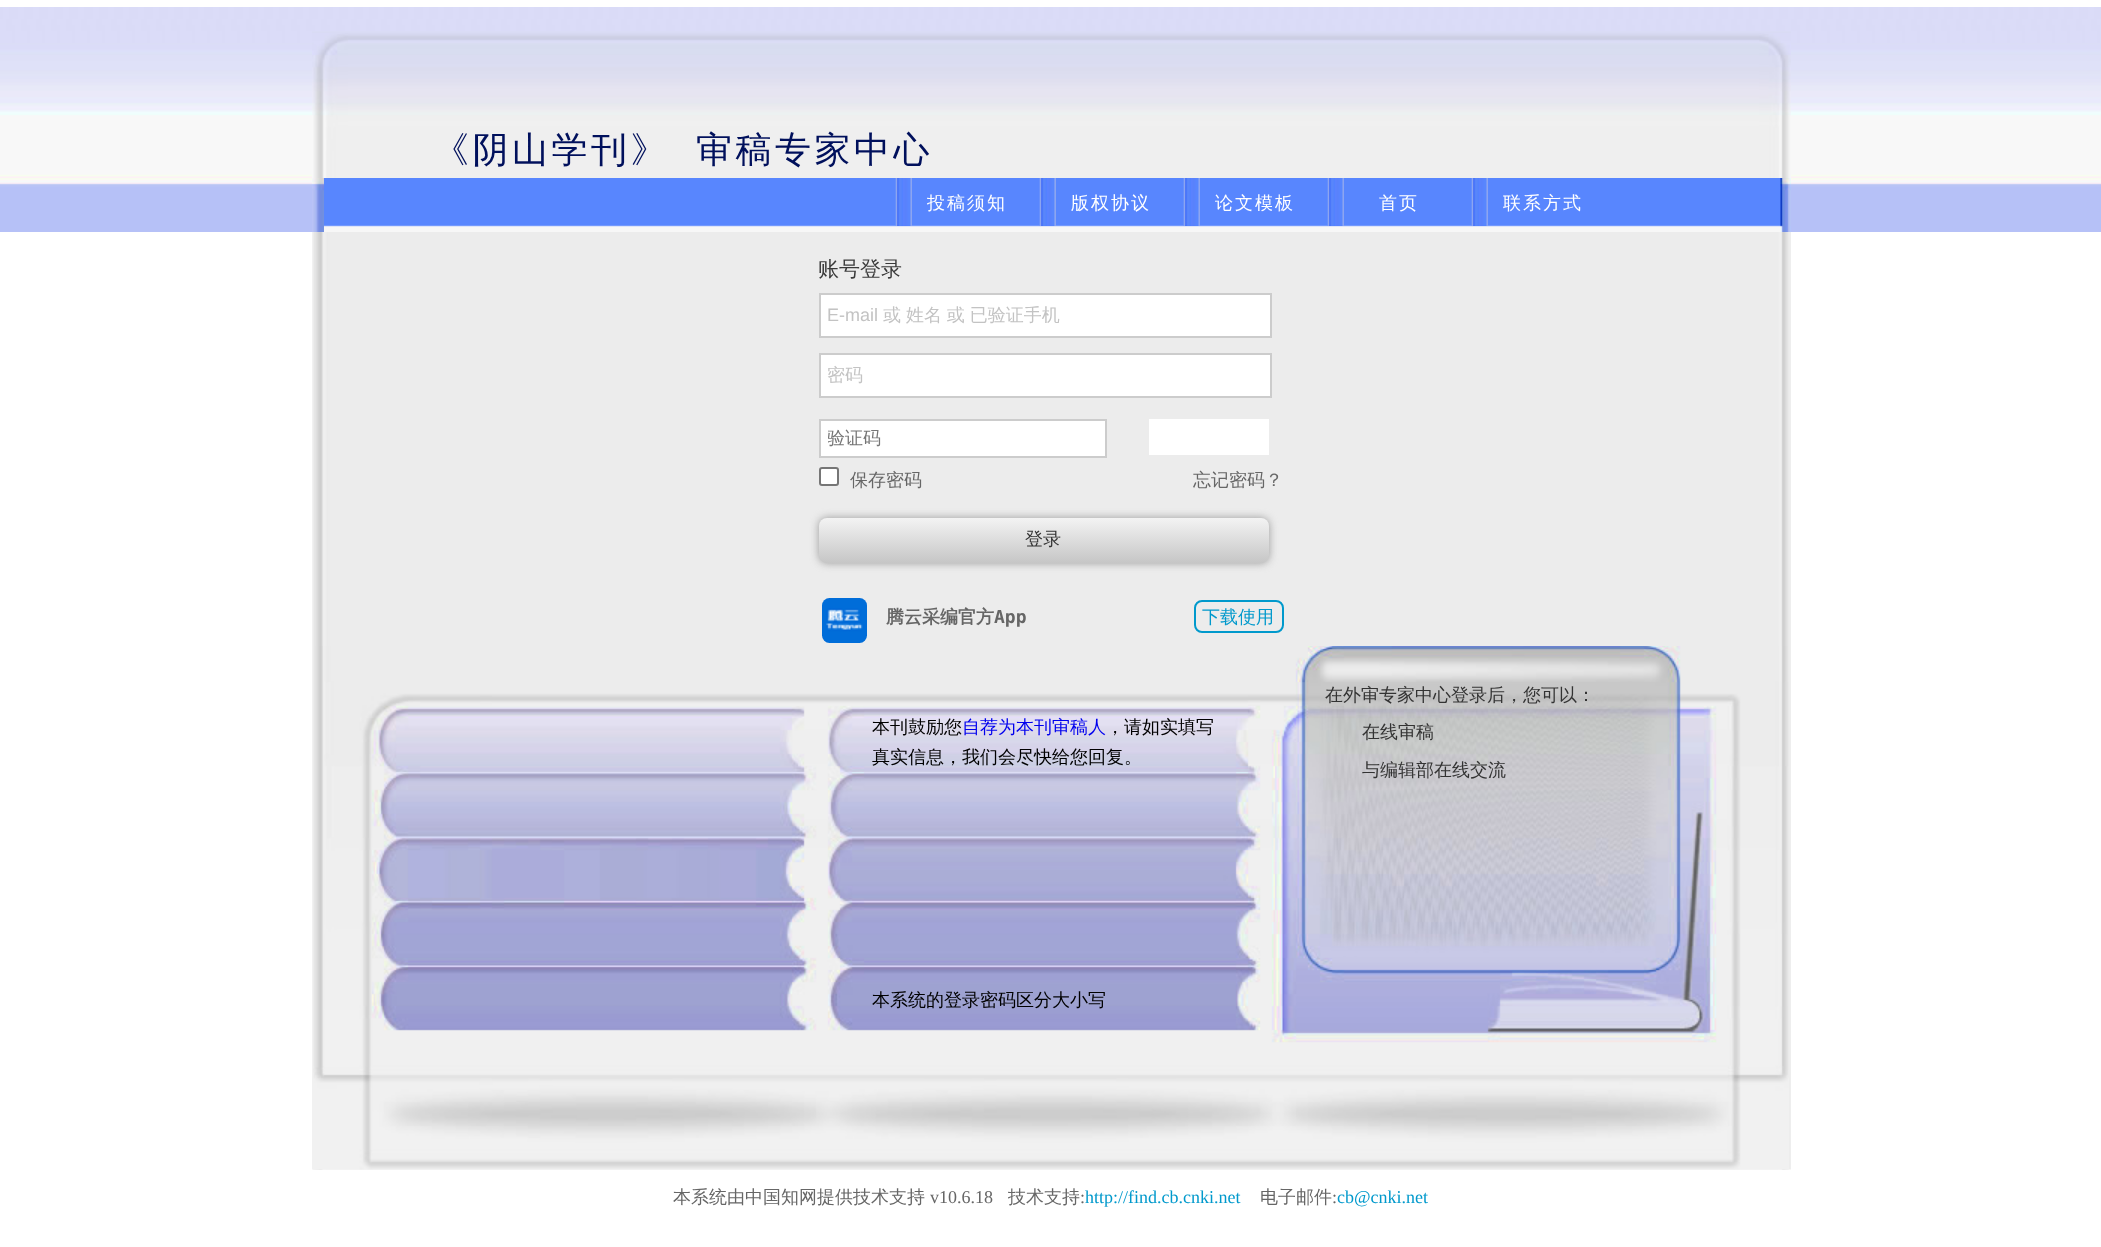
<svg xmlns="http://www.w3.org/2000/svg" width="2101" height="1247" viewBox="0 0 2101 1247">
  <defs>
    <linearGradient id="g1" gradientUnits="userSpaceOnUse" x1="1044" y1="518" x2="1044" y2="563"><stop offset="0" stop-color="#f3f3f3"/><stop offset="1" stop-color="#c6c6c6"/></linearGradient>
    <clipPath id="clip1"><path d="M828 426h270v26H828z"/></clipPath>
  </defs>
  <rect width="100%" height="100%" fill="#fff"/>
  <image x="0" y="7" width="2101" height="225" href="img/1.png"/>
  <image x="312" y="232" width="1479" height="938" href="img/2.png"/>
  <image x="312" y="31" width="1479" height="147" href="img/3.png"/>
  <image x="312" y="33" width="36" height="145" href="img/4.png"/>
  <image x="1759" y="33" width="32" height="145" href="img/5.png"/>
  <image x="324" y="178" width="1457" height="54" href="img/6.png"/>
  <image x="312" y="178" width="12" height="54" href="img/7.png"/>
  <image x="1780" y="178" width="11" height="54" href="img/8.png"/>
  <image x="895" y="178" width="17" height="48" href="img/9.png"/>
  <image x="1039" y="178" width="17" height="48" href="img/10.png"/>
  <image x="1183" y="178" width="17" height="48" href="img/9.png"/>
  <image x="1327" y="178" width="17" height="48" href="img/11.png"/>
  <image x="1471" y="178" width="17" height="48" href="img/9.png"/>
  <path d="M820 294h451v43H820z" fill="#fff" stroke="#ccc" stroke-width="2"/>
  <path d="M820 354h451v43H820z" fill="#fff" stroke="#ccc" stroke-width="2"/>
  <path d="M820 420h286v37H820z" fill="#fff" stroke="#ccc" stroke-width="2"/>
  <path d="M1149 419h120v36H1149z" fill="#fff"/>
  <rect x="820" y="468" width="18" height="17" rx="2" fill="#fff" stroke="#767676" stroke-width="2"/>
  <rect x="819" y="518" width="450" height="45" rx="8" fill="#999" filter="blur(4px)"/>
  <rect x="819" y="518" width="450" height="45" rx="8" fill="url(#g1)"/>
  <image x="822" y="598" width="45" height="45" href="img/12.png"/>
  <rect x="1195" y="601" width="88" height="31" rx="7" fill="none" stroke="#09c" stroke-width="2"/>
  <image x="313" y="646" width="1476" height="524" href="img/13.png"/>
  <g font-family="WenQuanYi Zen Hei" font-size="36" font-weight="500" letter-spacing="3.5" fill="#00105c">
    <text x="433" y="162">《阴山学刊》</text>
    <text x="696" y="162">审稿专家中心</text>
  </g>
  <g font-family="WenQuanYi Zen Hei" font-size="18" font-weight="500" letter-spacing="2" fill="#fff">
    <text x="927" y="209">投稿须知</text>
    <text x="1071" y="209">版权协议</text>
    <text x="1215" y="209">论文模板</text>
    <text x="1379" y="209">首页</text>
    <text x="1503" y="209">联系方式</text>
  </g>
  <text x="818" y="276" font-family="WenQuanYi Zen Hei" font-size="21" font-weight="500" fill="#3a3a3a">账号登录</text>
  <text x="827" y="321" font-family="Liberation Sans" font-size="18" fill="#c3c3c3">E-mail</text>
  <g font-family="WenQuanYi Zen Hei" font-size="18" font-weight="500" fill="#c3c3c3">
    <text x="883" y="321" word-spacing="-0.5">或 姓名 或 已验证手机</text>
    <text x="827" y="381">密码</text>
  </g>
  <g clip-path="url(#clip1)">
    <text x="827" y="444" font-family="WenQuanYi Zen Hei" font-size="18" font-weight="500" fill="#757575">验证码</text>
  </g>
  <g font-family="WenQuanYi Zen Hei" font-size="18" font-weight="500" fill="#666">
    <text x="850" y="486">保存密码</text>
    <text x="1193" y="486">忘记密码？</text>
  </g>
  <text x="1025" y="545" font-family="WenQuanYi Zen Hei" font-size="18" font-weight="500" fill="#333">登录</text>
  <text x="886" y="623" font-family="WenQuanYi Zen Hei" font-size="18" font-weight="bold" fill="#666">腾云采编官方</text>
  <text x="994" y="623" font-family="DejaVu Sans Mono" font-size="18" font-weight="bold" fill="#666">App</text>
  <text x="1202" y="623" font-family="WenQuanYi Zen Hei" font-size="18" font-weight="500" fill="#09c">下载使用</text>
  <text x="872" y="733" font-family="WenQuanYi Zen Hei" font-size="18" font-weight="500" fill="#000">本刊鼓励您</text>
  <text x="962" y="733" font-family="WenQuanYi Zen Hei" font-size="18" font-weight="500" fill="#00e">自荐为本刊审稿人</text>
  <g font-family="WenQuanYi Zen Hei" font-size="18" font-weight="500" fill="#000">
    <text x="1106" y="733">，请如实填写</text>
    <text x="872" y="763">真实信息，我们会尽快给您回复。</text>
    <text x="872" y="1006">本系统的登录密码区分大小写</text>
  </g>
  <g font-family="WenQuanYi Zen Hei" font-size="18" font-weight="500" fill="#333">
    <text x="1325" y="701">在外审专家中心登录后，您可以：</text>
    <text x="1362" y="738">在线审稿</text>
    <text x="1362" y="776">与编辑部在线交流</text>
  </g>
  <text x="673" y="1203" font-family="WenQuanYi Zen Hei" font-size="18" font-weight="500" fill="#666">本系统由中国知网提供技术支持</text>
  <text x="930" y="1203" font-family="Liberation Serif" font-size="18" fill="#666">v10.6.18</text>
  <text x="1008" y="1203" font-family="WenQuanYi Zen Hei" font-size="18" font-weight="500" fill="#666">技术支持</text>
  <text x="1080" y="1203" font-family="Liberation Serif" font-size="18" fill="#666">:</text>
  <text x="1085" y="1203" font-family="Liberation Serif" font-size="18" fill="#09c">http://find.cb.cnki.net</text>
  <text x="1260" y="1203" font-family="WenQuanYi Zen Hei" font-size="18" font-weight="500" fill="#666">电子邮件</text>
  <text x="1332" y="1203" font-family="Liberation Serif" font-size="18" fill="#666">:</text>
  <text x="1337" y="1203" font-family="Liberation Serif" font-size="18" fill="#09c">cb@cnki.net</text>
</svg>
